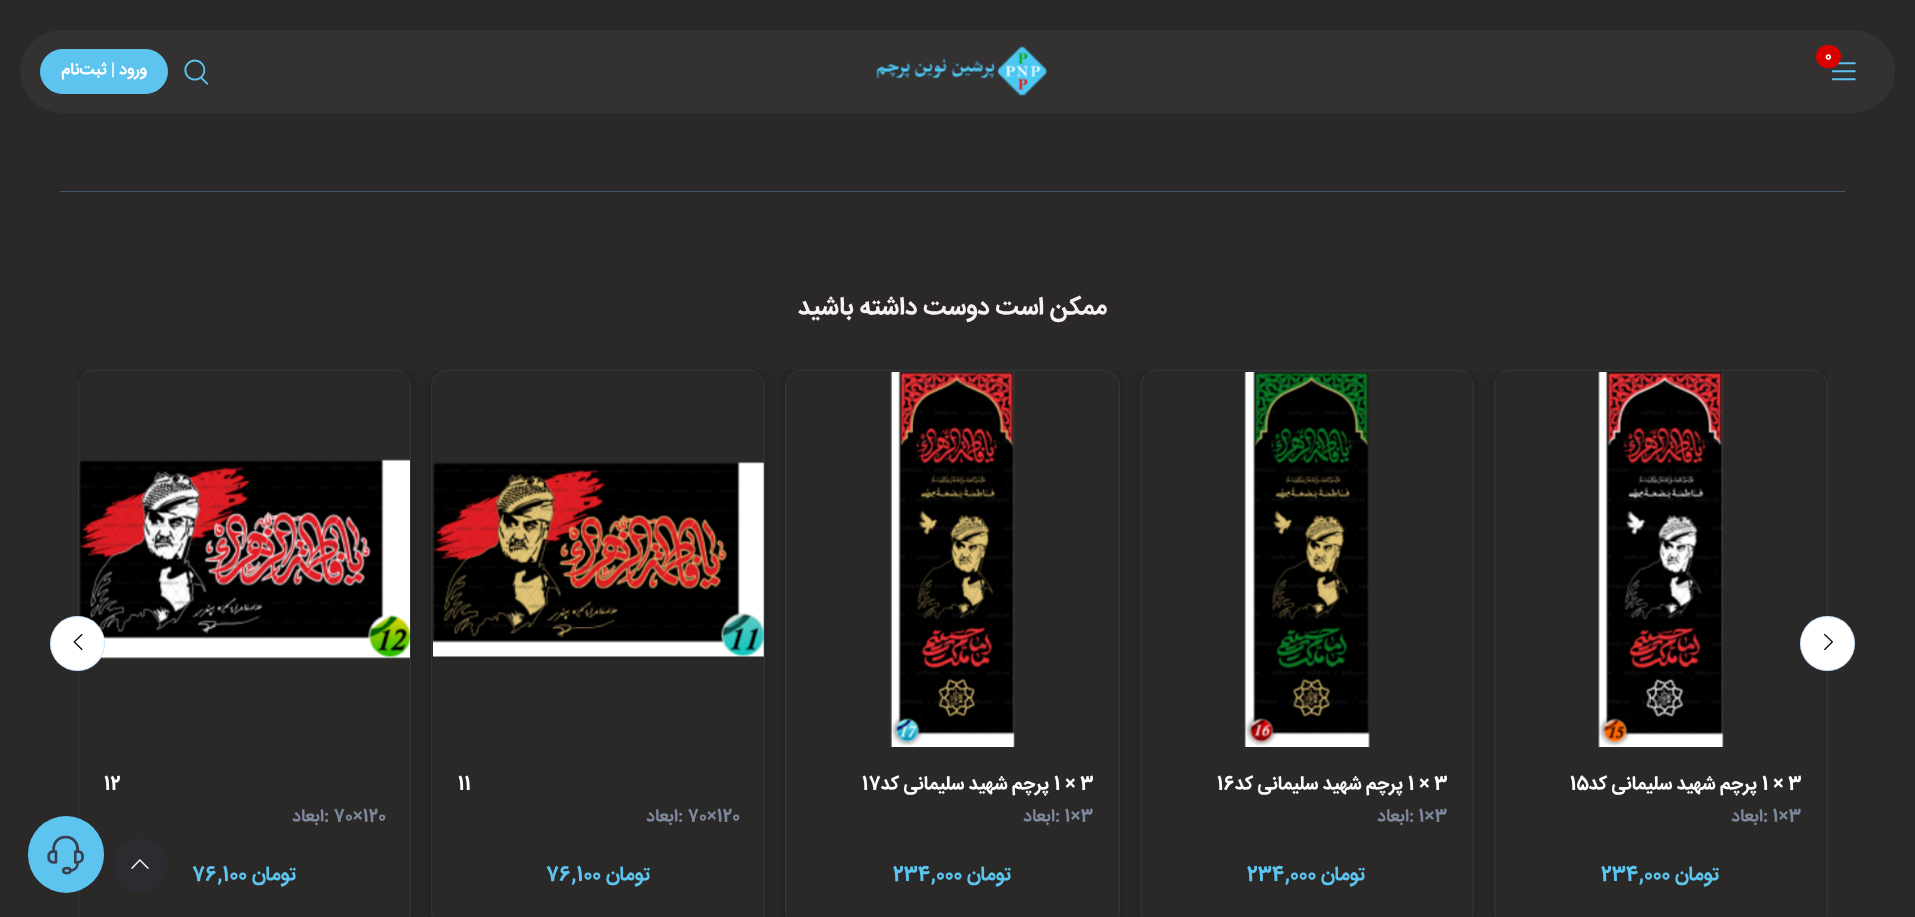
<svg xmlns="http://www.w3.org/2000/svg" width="1915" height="917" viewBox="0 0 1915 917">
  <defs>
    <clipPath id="clip1"><path d="M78 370h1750v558H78z"/></clipPath>
  </defs>
  <rect width="100%" height="100%" fill="#2a2928"/>
  <rect x="20" y="30" width="1875" height="83" rx="41.5" fill="#333132"/>
  <image x="1831" y="62" width="25" height="19" href="img/1.png"/>
  <rect x="1816" y="45" width="25" height="23" rx="11.5" fill="#da0000"/>
  <image x="876" y="46" width="171" height="50" href="img/2.png"/>
  <image x="184" y="59" width="25" height="26" href="img/3.png"/>
  <rect x="40.5" y="49.5" width="127" height="44" rx="22" fill="#5cc4ef" stroke="#5cc4ef"/>
  <path d="M60 191h1785v1H60z" fill="#3e5773"/>
  <g clip-path="url(#clip1)">
    <rect x="1494" y="370" width="334" height="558" rx="15" fill="#0000004d" filter="blur(6px)"/>
  </g>
  <rect x="1494.5" y="370.5" width="333" height="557" rx="14.5" fill="#2a2928" stroke="#2f383c"/>
  <circle cx="1827.5" cy="643.5" r="27.5" fill="#fff"/>
  <circle cx="1827.5" cy="643.5" r="27" fill="none" stroke="#64adff59"/>
  <image x="1824" y="634" width="10" height="16" href="img/4.png"/>
  <g clip-path="url(#clip1)">
    <rect x="78" y="370" width="333" height="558" rx="15" fill="#0000004d" filter="blur(6px)"/>
  </g>
  <rect x="78" y="370" width="333" height="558" rx="15" fill="#2a2928"/>
  <rect x="78.5" y="370.5" width="332" height="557" rx="14.5" fill="none" stroke="#5cc4ef1a"/>
  <image x="79" y="459" width="331" height="200" href="img/10.png"/>
  <circle cx="77.5" cy="643.5" r="27.5" fill="#fff"/>
  <circle cx="77.5" cy="643.5" r="27" fill="none" stroke="#64adff59"/>
  <image x="73" y="634" width="10" height="16" href="img/5.png"/>
  <image x="1598" y="372" width="126" height="375" href="img/6.png"/>
  <g clip-path="url(#clip1)">
    <rect x="1140" y="370" width="334" height="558" rx="15" fill="#0000004d" filter="blur(6px)"/>
  </g>
  <rect x="1140.5" y="370.5" width="333" height="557" rx="14.5" fill="#2a2928" stroke="#2f383c"/>
  <image x="1244" y="372" width="126" height="375" href="img/7.png"/>
  <g clip-path="url(#clip1)">
    <rect x="785" y="370" width="335" height="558" rx="15" fill="#0000004d" filter="blur(6px)"/>
  </g>
  <rect x="785.5" y="370.5" width="334" height="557" rx="14.5" fill="#2a2928" stroke="#2f383c"/>
  <image x="890" y="372" width="125" height="375" href="img/8.png"/>
  <g clip-path="url(#clip1)">
    <rect x="431" y="370" width="334" height="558" rx="15" fill="#0000004d" filter="blur(6px)"/>
  </g>
  <rect x="431.5" y="370.5" width="333" height="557" rx="14.5" fill="#2a2928" stroke="#2f383c"/>
  <image x="433" y="462" width="331" height="195" href="img/9.png"/>
  <rect x="28" y="816" width="76" height="77" rx="38" fill="#5cc4ef"/>
  <image x="47" y="835" width="37" height="40" href="img/11.png"/>
  <circle cx="140.5" cy="865.5" r="27.5" fill="#2a2c2f"/>
  <image x="131" y="859" width="18" height="10" href="img/12.png"/>
  <text x="1825" y="60" font-family="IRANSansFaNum" font-size="15" font-weight="bold" fill="#fff">0</text>
  <text x="147" y="74" font-family="IRANSansFaNum" font-size="16.25" font-weight="bold" direction="rtl" fill="#fff">ورود | ثبت‌نام</text>
  <text x="1107" y="314" font-family="IRANSansFaNum" font-size="25" font-weight="bold" direction="rtl" fill="#f7f1f1">ممکن است دوست داشته باشید</text>
  <text x="1762" y="789" font-family="IRANSansFaNum" font-size="18.75" font-weight="bold" fill="#fff">1 × 3</text>
  <text x="1757" y="789" font-family="IRANSansFaNum" font-size="18.75" font-weight="bold" direction="rtl" fill="#fff">پرچم شهید سلیمانی کد</text>
  <text x="1570" y="789" font-family="IRANSansFaNum" font-size="18.75" font-weight="bold" fill="#fff">15</text>
  <text x="1763" y="821" font-family="IRANSansFaNum" font-size="17.5" font-weight="bold" fill="#7d879c">: 1×3</text>
  <text x="1763" y="821" font-family="IRANSansFaNum" font-size="17.5" font-weight="bold" direction="rtl" fill="#7d879c">ابعاد</text>
  <text x="1720" y="880" font-family="IRANSansFaNum" font-size="20" font-weight="bold" direction="rtl" fill="#5cc4ef">تومان</text>
  <text x="1601" y="880" font-family="IRANSansFaNum" font-size="20" font-weight="bold" fill="#5cc4ef">234,000</text>
  <text x="1408" y="789" font-family="IRANSansFaNum" font-size="18.75" font-weight="bold" fill="#fff">1 × 3</text>
  <text x="1403" y="789" font-family="IRANSansFaNum" font-size="18.75" font-weight="bold" direction="rtl" fill="#fff">پرچم شهید سلیمانی کد</text>
  <text x="1217" y="789" font-family="IRANSansFaNum" font-size="18.75" font-weight="bold" fill="#fff">16</text>
  <text x="1409" y="821" font-family="IRANSansFaNum" font-size="17.5" font-weight="bold" fill="#7d879c">: 1×3</text>
  <text x="1409" y="821" font-family="IRANSansFaNum" font-size="17.5" font-weight="bold" direction="rtl" fill="#7d879c">ابعاد</text>
  <text x="1366" y="880" font-family="IRANSansFaNum" font-size="20" font-weight="bold" direction="rtl" fill="#5cc4ef">تومان</text>
  <text x="1247" y="880" font-family="IRANSansFaNum" font-size="20" font-weight="bold" fill="#5cc4ef">234,000</text>
  <text x="1054" y="789" font-family="IRANSansFaNum" font-size="18.75" font-weight="bold" fill="#fff">1 × 3</text>
  <text x="1049" y="789" font-family="IRANSansFaNum" font-size="18.75" font-weight="bold" direction="rtl" fill="#fff">پرچم شهید سلیمانی کد</text>
  <text x="862" y="789" font-family="IRANSansFaNum" font-size="18.75" font-weight="bold" fill="#fff">17</text>
  <text x="1055" y="821" font-family="IRANSansFaNum" font-size="17.5" font-weight="bold" fill="#7d879c">: 1×3</text>
  <text x="1055" y="821" font-family="IRANSansFaNum" font-size="17.5" font-weight="bold" direction="rtl" fill="#7d879c">ابعاد</text>
  <text x="1012" y="880" font-family="IRANSansFaNum" font-size="20" font-weight="bold" direction="rtl" fill="#5cc4ef">تومان</text>
  <text x="893" y="880" font-family="IRANSansFaNum" font-size="20" font-weight="bold" fill="#5cc4ef">234,000</text>
  <text x="458" y="789" font-family="IRANSansFaNum" font-size="18.75" font-weight="bold" fill="#fff">11</text>
  <text x="678" y="821" font-family="IRANSansFaNum" font-size="17.5" font-weight="bold" fill="#7d879c">: 70×120</text>
  <text x="678" y="821" font-family="IRANSansFaNum" font-size="17.5" font-weight="bold" direction="rtl" fill="#7d879c">ابعاد</text>
  <text x="651" y="880" font-family="IRANSansFaNum" font-size="20" font-weight="bold" direction="rtl" fill="#5cc4ef">تومان</text>
  <text x="546" y="880" font-family="IRANSansFaNum" font-size="20" font-weight="bold" fill="#5cc4ef">76,100</text>
  <text x="104" y="789" font-family="IRANSansFaNum" font-size="18.75" font-weight="bold" fill="#fff">12</text>
  <text x="324" y="821" font-family="IRANSansFaNum" font-size="17.5" font-weight="bold" fill="#7d879c">: 70×120</text>
  <text x="324" y="821" font-family="IRANSansFaNum" font-size="17.5" font-weight="bold" direction="rtl" fill="#7d879c">ابعاد</text>
  <text x="297" y="880" font-family="IRANSansFaNum" font-size="20" font-weight="bold" direction="rtl" fill="#5cc4ef">تومان</text>
  <text x="192" y="880" font-family="IRANSansFaNum" font-size="20" font-weight="bold" fill="#5cc4ef">76,100</text>
</svg>
